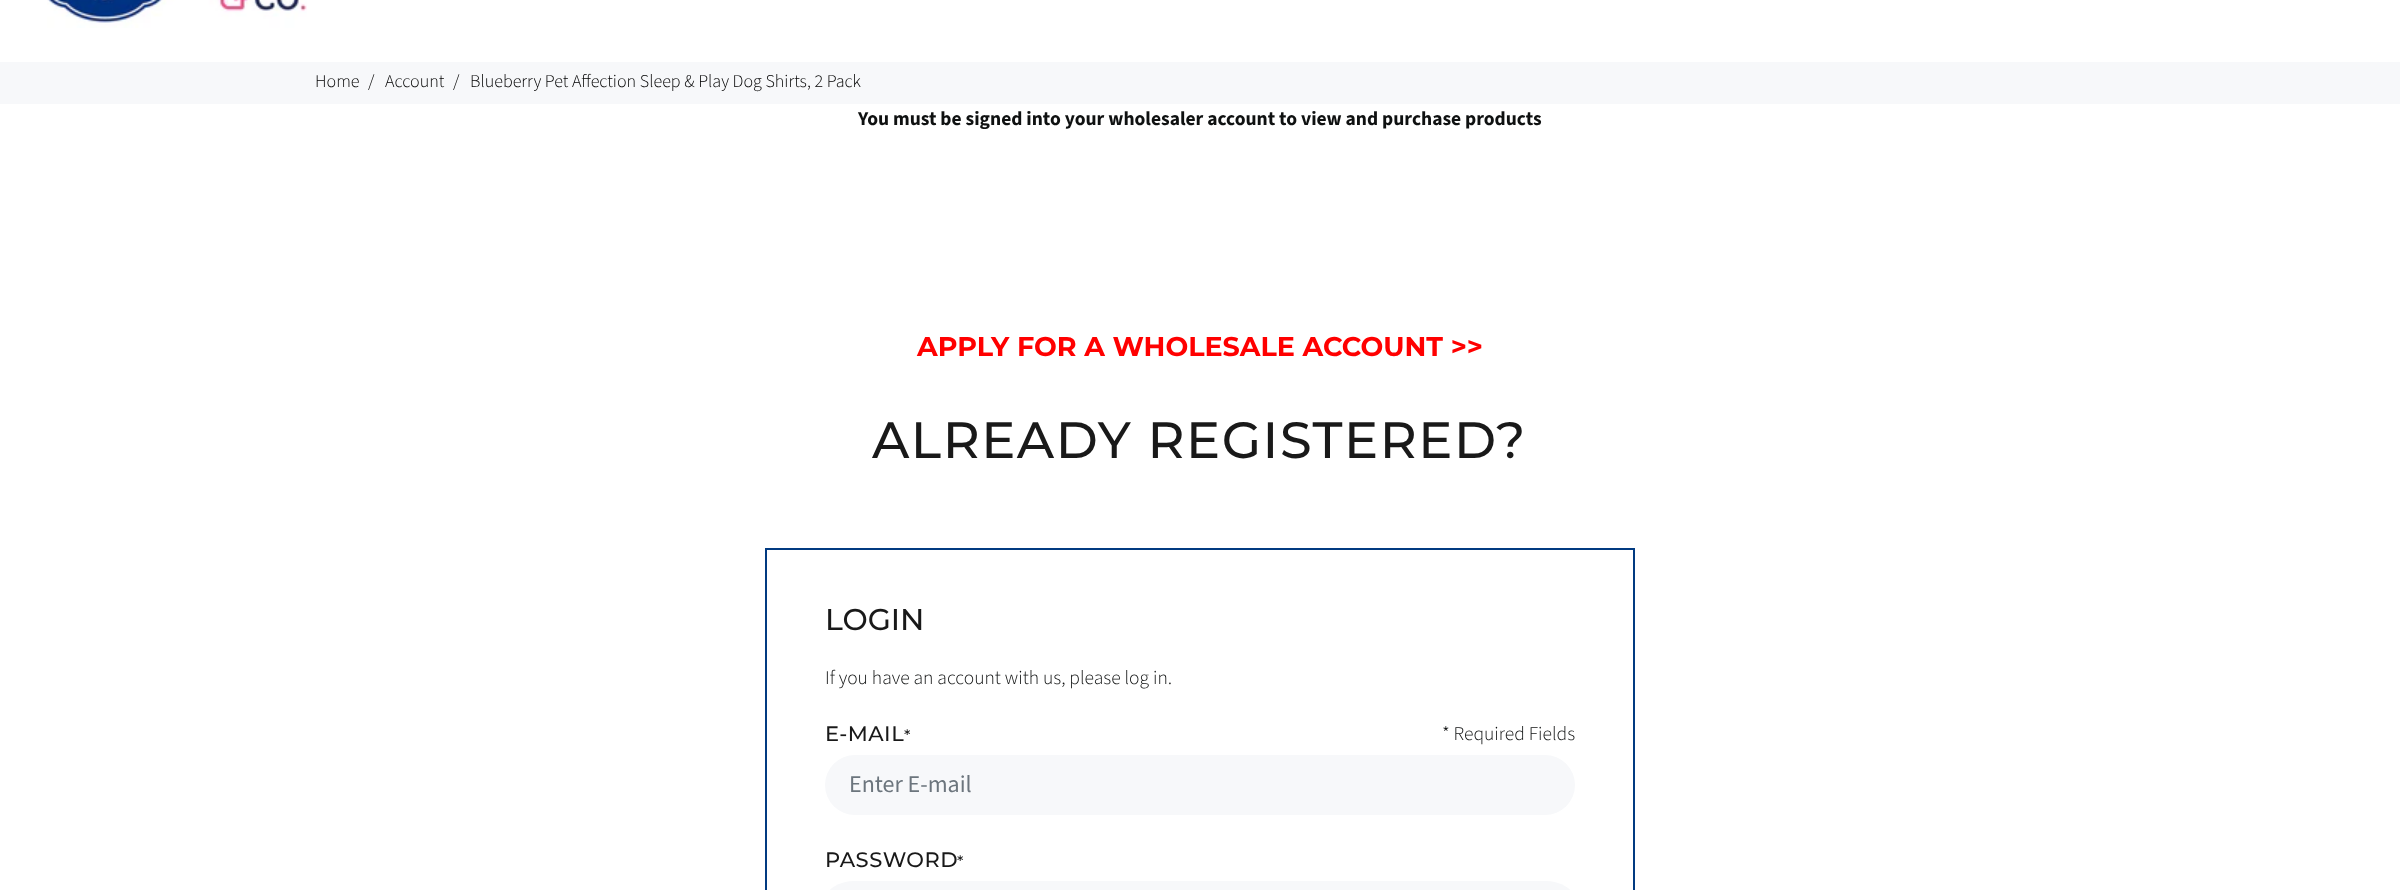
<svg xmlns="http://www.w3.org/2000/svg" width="2400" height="890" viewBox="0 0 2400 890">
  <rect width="100%" height="100%" fill="#fff"/>
  <image x="47" y="0" width="260" height="28" href="img/1.png"/>
  <path d="M0 62h2400v42H0z" fill="#f7f8fa"/>
  <path d="M766 549h868v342H766z" fill="none" stroke="#013a81" stroke-width="2"/>
  <rect x="825" y="755" width="750" height="60" rx="30" fill="#f7f8fa"/>
  <rect x="825" y="881" width="750" height="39" rx="30" fill="#f7f8fa"/>
  <g font-family="Source Sans Pro" font-size="18" font-weight="300" fill="#000">
    <text x="315" y="87">Home</text>
    <text x="368" y="87">/</text>
    <text x="385" y="87">Account</text>
    <text x="453" y="87">/</text>
    <text x="470" y="87">Blueberry Pet Affection Sleep &amp; Play Dog Shirts, 2 Pack</text>
  </g>
  <text x="858" y="125" font-family="Source Sans Pro" font-size="19.5" font-weight="bold" fill="#0f1111">You must be signed into your wholesaler account to view and purchase products</text>
  <text x="917" y="356" font-family="montserrat" font-size="27" font-weight="bold" fill="#f00">APPLY FOR A WHOLESALE ACCOUNT &gt;&gt;</text>
  <text x="872" y="458" font-family="Montserrat" font-size="51" font-weight="500" letter-spacing="1.5" fill="#191919">ALREADY REGISTERED?</text>
  <text x="825" y="630" font-family="Montserrat" font-size="30" font-weight="500" fill="#191919">LOGIN</text>
  <text x="825" y="684" font-family="Source Sans Pro" font-size="19.5" font-weight="300" fill="#0f1111">If you have an account with us, please log in.</text>
  <text x="825" y="741" font-family="Montserrat" font-size="21" font-weight="500" letter-spacing="0.5" fill="#191919">E-MAIL</text>
  <text x="904" y="741" font-family="Montserrat" font-size="16" font-weight="500" letter-spacing="0.5" fill="#191919">*</text>
  <text x="1442" y="740" font-family="Source Sans Pro" font-size="19.5" font-weight="300" fill="#0f1111">* Required Fields</text>
  <text x="849" y="792" font-family="Source Sans Pro" font-size="24" fill="#6c757d">Enter E-mail</text>
  <text x="825" y="867" font-family="Montserrat" font-size="21" font-weight="500" letter-spacing="0.5" fill="#191919">PASSWORD</text>
  <text x="957" y="867" font-family="Montserrat" font-size="16" font-weight="500" letter-spacing="0.5" fill="#191919">*</text>
</svg>
